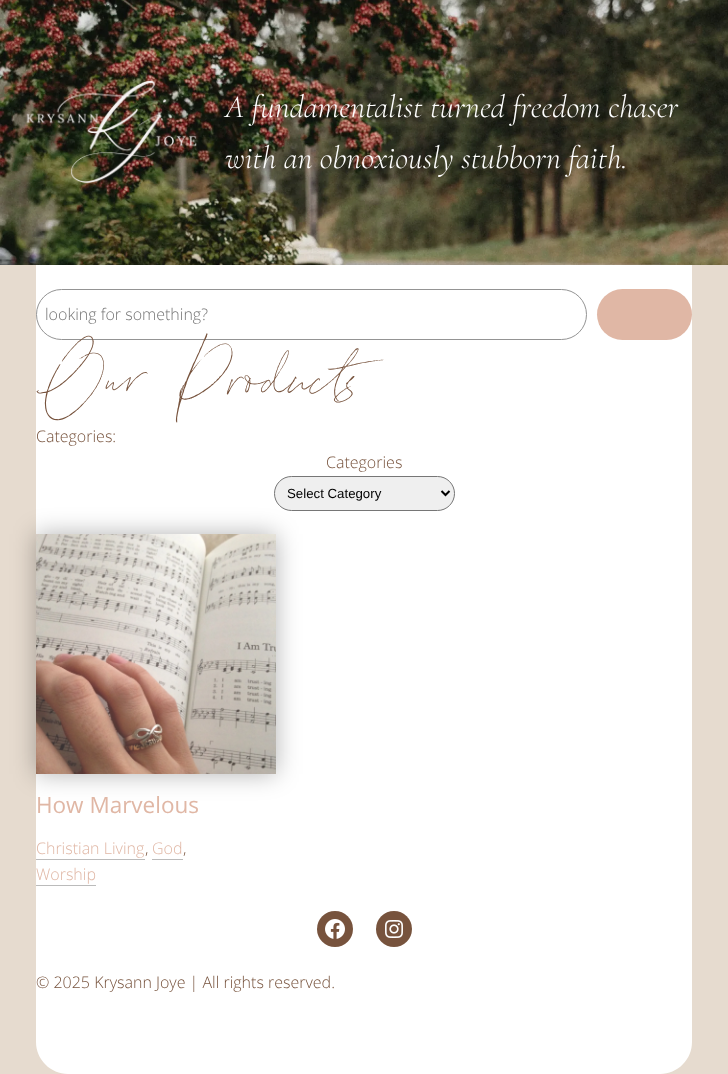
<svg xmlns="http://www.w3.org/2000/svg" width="728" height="1074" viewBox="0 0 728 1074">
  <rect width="100%" height="100%" fill="#e6dbcf"/>
  <image x="0" y="0" width="728" height="265" href="img/1.png"/>
  <image x="26" y="80" width="171" height="104" href="img/2.png"/>
  <path d="M36 265H692V1042C692 1059.5 677.5 1074 660 1074H68C50.5 1074 36 1059.5 36 1042Z" fill="#fff"/>
  <rect x="36.5" y="289.5" width="550" height="50" rx="25" fill="none" stroke="#949494"/>
  <rect x="597" y="289" width="95" height="51" rx="25.5" fill="#e0b7a5"/>
  <rect x="274.5" y="476.5" width="180" height="34" rx="17" fill="#efefef" stroke="#767676"/>
  <path d="M441.5 491L445.5 495L449.5 491" fill="none" stroke="#000" stroke-width="2"/>
  <path d="M36 534h240v240H36z" fill="#0000004d" filter="blur(12px)"/>
  <image x="36" y="534" width="240" height="240" href="img/3.png"/>
  <path d="M36 859h109v1H36z" fill="#bbb"/>
  <path d="M152 859h31v1H152z" fill="#bbb"/>
  <path d="M36 885h60v1H36z" fill="#bbb"/>
  <circle cx="335" cy="929" r="18" fill="#77533d"/>
  <image x="325" y="919" width="20" height="20" href="img/4.png"/>
  <circle cx="394" cy="929" r="18" fill="#77533d"/>
  <image x="385" y="920" width="18" height="18" href="img/5.png"/>
  <g font-family="Cormorant Garamond" font-size="32" font-weight="300" font-style="italic" fill="#fff">
    <text x="225" y="117">A fundamentalist turned freedom chaser</text>
    <text x="225" y="168">with an obnoxiously stubborn faith.</text>
  </g>
  <text x="45" y="320" font-family="Open Sans" font-size="16" font-weight="300" fill="#757575">looking for something?</text>
  <text x="36" y="410" font-family="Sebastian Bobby" font-size="96" fill="#77533d">Our Products</text>
  <g font-family="Open Sans" font-size="16" font-weight="300" fill="#77533d">
    <text x="36" y="442">Categories:</text>
    <text x="326" y="468">Categories</text>
  </g>
  <text x="287" y="498" font-family="Liberation Sans" font-size="13.25" fill="#000">Select Category</text>
  <text x="36" y="813" font-family="Open Sans" font-size="22.5" fill="#e0b7a5">How Marvelous</text>
  <text x="36" y="854" font-family="Open Sans" font-size="16" font-weight="300" fill="#e0b7a5">Christian Living</text>
  <text x="145" y="854" font-family="Open Sans" font-size="16" font-weight="300" fill="#77533d">,</text>
  <text x="152" y="854" font-family="Open Sans" font-size="16" font-weight="300" fill="#e0b7a5">God</text>
  <text x="183" y="854" font-family="Open Sans" font-size="16" font-weight="300" fill="#77533d">,</text>
  <text x="36" y="880" font-family="Open Sans" font-size="16" font-weight="300" fill="#e0b7a5">Worship</text>
  <text x="36" y="988" font-family="Open Sans" font-size="16" font-weight="300" fill="#77533d">© 2025 Krysann Joye | All rights reserved.</text>
</svg>
